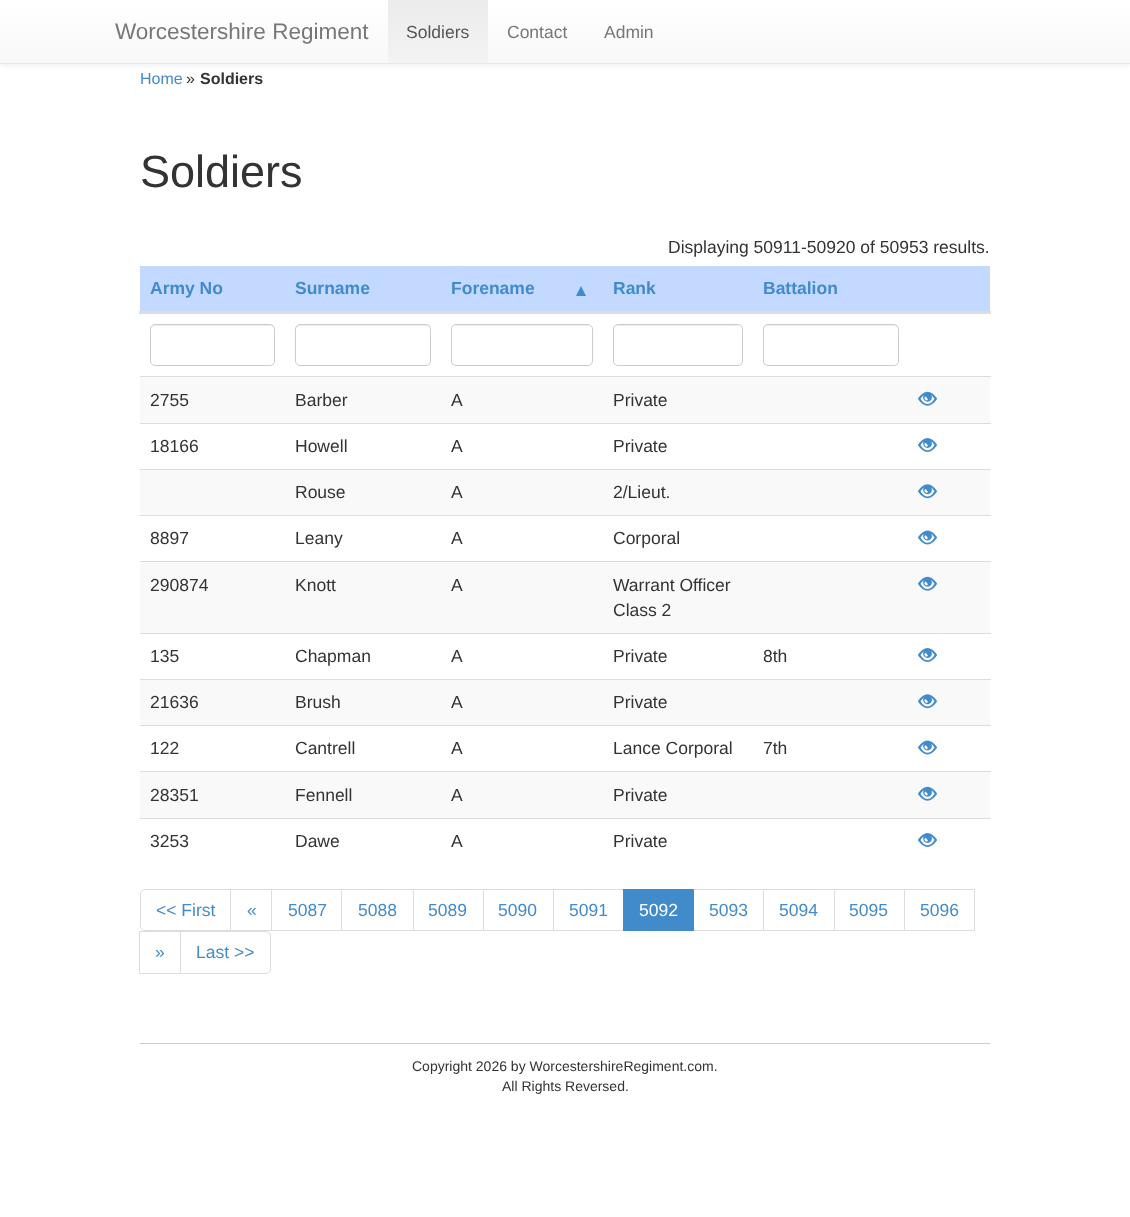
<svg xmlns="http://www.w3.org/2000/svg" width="1130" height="1217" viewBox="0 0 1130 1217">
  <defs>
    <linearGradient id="g1" gradientUnits="userSpaceOnUse" x1="565" y1="0" x2="565" y2="63"><stop offset="0" stop-color="#fff"/><stop offset="1" stop-color="#f8f8f8"/></linearGradient>
    <linearGradient id="g2" gradientUnits="userSpaceOnUse" x1="438" y1="0" x2="438" y2="63"><stop offset="0" stop-color="#ebebeb"/><stop offset="1" stop-color="#f3f3f3"/></linearGradient>
  </defs>
  <rect width="100%" height="100%" fill="#fff"/>
  <path d="M0 1h1130v64H0z" fill="#00000012" filter="blur(3px)"/>
  <path d="M0 0h1130v63H0z" fill="url(#g1)"/>
  <path d="M0 63h1130v1H0z" fill="#e7e7e7"/>
  <path d="M388 0h100v63H388z" fill="url(#g2)"/>
  <path d="M140 266h850v45H140z" fill="#c3d9ff"/>
  <path d="M586 296H576L581 286Z" fill="#428bca"/>
  <path d="M139 311h852v3H139z" fill="#ddd"/>
  <path d="M155 326H270C272 326 274 328 274 330C274 320 254 325 251 325H174C171 325 151 320 151 330C151 328 153 326 155 326Z" fill="#ececec"/>
  <rect x="150.5" y="324.5" width="124" height="41" rx="4.5" fill="none" stroke="#ccc"/>
  <path d="M300 326H426C428 326 430 328 430 330V329C430 327 428 325 426 325H300C298 325 296 327 296 329V330C296 328 298 326 300 326Z" fill="#ececec"/>
  <rect x="295.5" y="324.5" width="135" height="41" rx="4.5" fill="none" stroke="#ccc"/>
  <path d="M456 326H588C590 326 591 328 591 330V329C591 327 589 325 587 325H457C456 325 454 326 454 327Z" fill="#ececec"/>
  <rect x="451.5" y="324.5" width="141" height="41" rx="4.5" fill="none" stroke="#ccc"/>
  <path d="M618 326H738C740 326 741 328 741 330C741 320 720 325 717 325H638C635 325 614 320 614 330C614 328 615 326 618 326Z" fill="#ececec"/>
  <rect x="613.5" y="324.5" width="129" height="41" rx="4.5" fill="none" stroke="#ccc"/>
  <path d="M768 326H894C896 326 898 328 898 330V329C898 327 896 325 894 325H768C766 325 764 327 764 329V330C764 328 765 326 768 326Z" fill="#ececec"/>
  <rect x="763.5" y="324.5" width="135" height="41" rx="4.5" fill="none" stroke="#ccc"/>
  <path d="M140 376h851v1H140z" fill="#ddd"/>
  <path d="M140 377h850v46H140z" fill="#f9f9f9"/>
  <image x="917" y="391" width="21" height="15" href="img/1.png"/>
  <path d="M140 423h851v1H140z" fill="#ddd"/>
  <image x="918" y="438" width="19" height="14" href="img/2.png"/>
  <path d="M140 469h851v1H140z" fill="#ddd"/>
  <path d="M140 470h850v45H140z" fill="#f9f9f9"/>
  <image x="917" y="484" width="21" height="15" href="img/3.png"/>
  <path d="M140 515h851v1H140z" fill="#ddd"/>
  <image x="917" y="530" width="21" height="15" href="img/4.png"/>
  <path d="M140 561h851v1H140z" fill="#ddd"/>
  <path d="M140 562h850v71H140z" fill="#f9f9f9"/>
  <image x="917" y="576" width="21" height="15" href="img/1.png"/>
  <path d="M140 633h851v1H140z" fill="#ddd"/>
  <image x="918" y="648" width="19" height="14" href="img/2.png"/>
  <path d="M140 679h851v1H140z" fill="#ddd"/>
  <path d="M140 680h850v45H140z" fill="#f9f9f9"/>
  <image x="917" y="694" width="21" height="15" href="img/3.png"/>
  <path d="M140 725h851v1H140z" fill="#ddd"/>
  <image x="917" y="740" width="21" height="15" href="img/4.png"/>
  <path d="M140 771h851v1H140z" fill="#ddd"/>
  <path d="M140 772h850v46H140z" fill="#f9f9f9"/>
  <image x="917" y="786" width="21" height="15" href="img/1.png"/>
  <path d="M140 818h851v1H140z" fill="#ddd"/>
  <image x="918" y="833" width="19" height="14" href="img/2.png"/>
  <path d="M145 889.5H230.5V930.5H145C142.5 930.5 140.5 928.5 140.5 926V894C140.5 891.5 142.5 889.5 145 889.5Z" fill="none" stroke="#ddd"/>
  <path d="M230.5 889.5h42v41H230.5z" fill="none" stroke="#ddd"/>
  <path d="M272 890h1v40H272z" fill="#fff"/>
  <path d="M271.5 889.5h71v41H271.5z" fill="none" stroke="#ddd"/>
  <path d="M342 890h1v40H342z" fill="#fff"/>
  <path d="M341.5 889.5h72v41H341.5z" fill="none" stroke="#ddd"/>
  <path d="M413.5 889.5h70v41H413.5z" fill="none" stroke="#ddd"/>
  <path d="M483.5 889.5h70v41H483.5z" fill="none" stroke="#ddd"/>
  <path d="M553.5 889.5h70v41H553.5z" fill="none" stroke="#ddd"/>
  <path d="M693.5 889.5h70v41H693.5z" fill="none" stroke="#ddd"/>
  <path d="M623 889h71v42H623z" fill="#428bca"/>
  <path d="M763.5 889.5h71v41H763.5z" fill="none" stroke="#ddd"/>
  <path d="M834.5 889.5h70v41H834.5z" fill="none" stroke="#ddd"/>
  <path d="M904.5 889.5h70v41H904.5z" fill="none" stroke="#ddd"/>
  <path d="M139.5 931.5h41v42H139.5z" fill="none" stroke="#ddd"/>
  <path d="M180.5 931.5H266C268.5 931.5 270.5 933.5 270.5 936V969C270.5 971.5 268.5 973.5 266 973.5H180.5Z" fill="#fff" stroke="#ddd"/>
  <path d="M140 1043h850v1H140z" fill="#ccc"/>
  <text x="115" y="39" font-family="Liberation Sans" font-size="22.5" fill="#777">Worcestershire Regiment</text>
  <text x="406" y="38" font-family="Liberation Sans" font-size="17.5" fill="#555">Soldiers</text>
  <g font-family="Liberation Sans" font-size="17.5" fill="#777">
    <text x="507" y="38">Contact</text>
    <text x="604" y="38">Admin</text>
  </g>
  <text x="140" y="84" font-family="Liberation Sans" font-size="16" fill="#428bca">Home</text>
  <text x="186" y="84" font-family="Liberation Sans" font-size="16" fill="#333">»</text>
  <text x="200" y="84" font-family="Liberation Sans" font-size="16" font-weight="bold" fill="#333">Soldiers</text>
  <text x="140" y="187" font-family="Liberation Sans" font-size="45" fill="#333">Soldiers</text>
  <text x="668" y="253" font-family="Liberation Sans" font-size="17.5" fill="#333">Displaying 50911-50920 of 50953 results.</text>
  <g font-family="Liberation Sans" font-size="17.5" font-weight="bold" fill="#428bca">
    <text x="150" y="294">Army No</text>
    <text x="295" y="294">Surname</text>
    <text x="451" y="294">Forename</text>
    <text x="613" y="294">Rank</text>
    <text x="763" y="294">Battalion</text>
  </g>
  <g font-family="Liberation Sans" font-size="17.5" fill="#333">
    <text x="150" y="406">2755</text>
    <text x="295" y="406">Barber</text>
    <text x="451" y="406">A</text>
    <text x="613" y="406">Private</text>
    <text x="150" y="452">18166</text>
    <text x="295" y="452">Howell</text>
    <text x="451" y="452">A</text>
    <text x="613" y="452">Private</text>
    <text x="295" y="498">Rouse</text>
    <text x="451" y="498">A</text>
    <text x="613" y="498">2/Lieut.</text>
    <text x="150" y="544">8897</text>
    <text x="295" y="544">Leany</text>
    <text x="451" y="544">A</text>
    <text x="613" y="544">Corporal</text>
    <text x="150" y="591">290874</text>
    <text x="295" y="591">Knott</text>
    <text x="451" y="591">A</text>
    <text x="613" y="591">Warrant Officer</text>
    <text x="613" y="616">Class 2</text>
    <text x="150" y="662">135</text>
    <text x="295" y="662">Chapman</text>
    <text x="451" y="662">A</text>
    <text x="613" y="662">Private</text>
    <text x="763" y="662">8th</text>
    <text x="150" y="708">21636</text>
    <text x="295" y="708">Brush</text>
    <text x="451" y="708">A</text>
    <text x="613" y="708">Private</text>
    <text x="150" y="754">122</text>
    <text x="295" y="754">Cantrell</text>
    <text x="451" y="754">A</text>
    <text x="613" y="754">Lance Corporal</text>
    <text x="763" y="754">7th</text>
    <text x="150" y="801">28351</text>
    <text x="295" y="801">Fennell</text>
    <text x="451" y="801">A</text>
    <text x="613" y="801">Private</text>
    <text x="150" y="847">3253</text>
    <text x="295" y="847">Dawe</text>
    <text x="451" y="847">A</text>
    <text x="613" y="847">Private</text>
  </g>
  <g font-family="Liberation Sans" font-size="17.5" fill="#428bca">
    <text x="156" y="916">&lt;&lt; First</text>
    <text x="247" y="916">«</text>
    <text x="288" y="916">5087</text>
    <text x="358" y="916">5088</text>
    <text x="428" y="916">5089</text>
    <text x="498" y="916">5090</text>
    <text x="569" y="916">5091</text>
  </g>
  <text x="639" y="916" font-family="Liberation Sans" font-size="17.5" fill="#fff">5092</text>
  <g font-family="Liberation Sans" font-size="17.5" fill="#428bca">
    <text x="709" y="916">5093</text>
    <text x="779" y="916">5094</text>
    <text x="849" y="916">5095</text>
    <text x="920" y="916">5096</text>
    <text x="155" y="958">»</text>
    <text x="196" y="958">Last &gt;&gt;</text>
  </g>
  <g font-family="Liberation Sans" font-size="14" fill="#333">
    <text x="412" y="1071">Copyright 2026 by WorcestershireRegiment.com.</text>
    <text x="502" y="1091">All Rights Reversed.</text>
  </g>
</svg>
